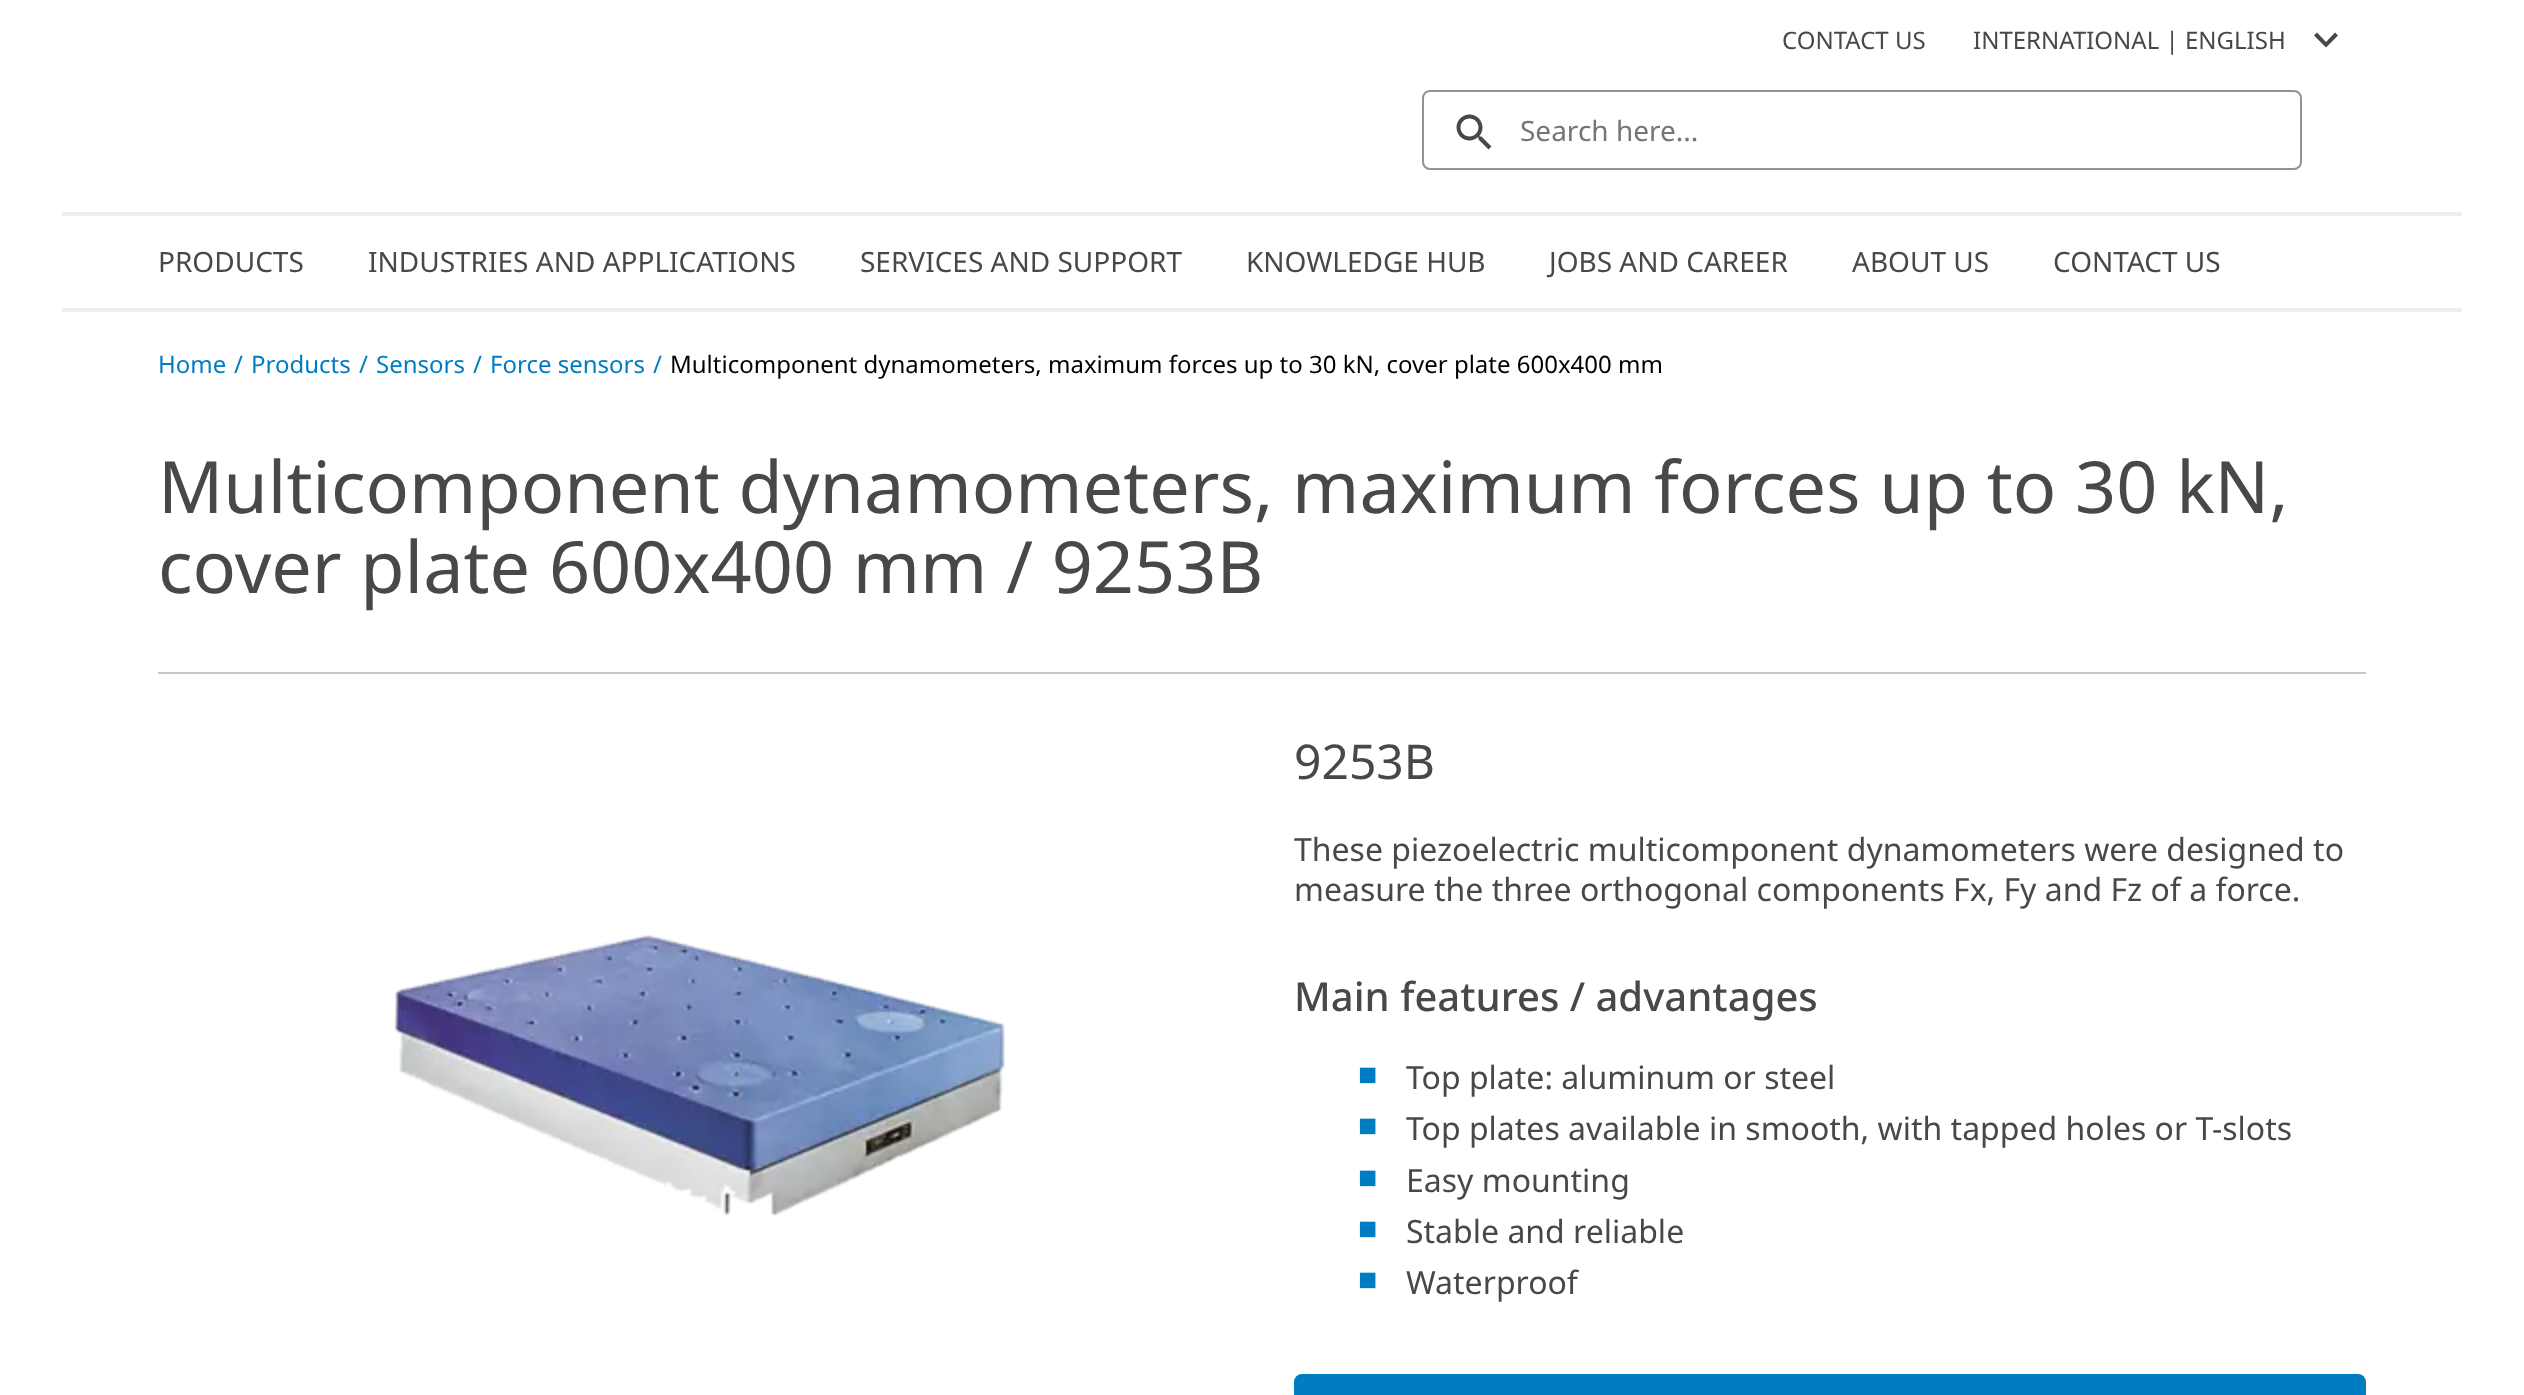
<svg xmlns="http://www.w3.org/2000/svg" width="2524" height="1395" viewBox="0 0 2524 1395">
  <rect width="100%" height="100%" fill="#fff"/>
  <path d="M2335 32.5L2326 42L2317 32.5L2314 35.5L2326 47.5L2338 35.5Z" fill="#484848" fill-rule="evenodd"/>
  <rect x="1423" y="91" width="878" height="78" rx="7" fill="none" stroke="#929395" stroke-width="2"/>
  <image x="1456" y="114" width="36" height="36" href="img/1.png"/>
  <path d="M62 212h2400v4H62z" fill="#eceded"/>
  <path d="M62 308h2400v4H62z" fill="#eceded"/>
  <path d="M158 672h2208v2H158z" fill="#c5c6c8"/>
  <image x="393" y="935" width="612" height="282" href="img/2.png"/>
  <rect x="1295" y="1375" width="1070" height="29" rx="7" fill="#007cc2" stroke="#007cc2" stroke-width="2"/>
  <g font-family="Noto Sans" font-size="24" fill="#484848">
    <text x="1782" y="49">CONTACT US</text>
    <text x="1973" y="49">INTERNATIONAL | ENGLISH</text>
  </g>
  <text x="1520" y="141" font-family="Noto Sans" font-size="28" fill="#757575">Search here...</text>
  <g font-family="Noto Sans" font-size="28" fill="#484848">
    <text x="158" y="272">PRODUCTS</text>
    <text x="368" y="272">INDUSTRIES AND APPLICATIONS</text>
    <text x="860" y="272">SERVICES AND SUPPORT</text>
    <text x="1246" y="272">KNOWLEDGE HUB</text>
    <text x="1549" y="272">JOBS AND CAREER</text>
    <text x="1852" y="272">ABOUT US</text>
    <text x="2053" y="272">CONTACT US</text>
  </g>
  <g font-family="Noto Sans" font-size="24" fill="#007cc2">
    <text x="158" y="373">Home</text>
    <text x="234" y="373">/</text>
    <text x="251" y="373">Products</text>
    <text x="359" y="373">/</text>
    <text x="376" y="373">Sensors</text>
    <text x="473" y="373">/</text>
    <text x="490" y="373">Force sensors</text>
    <text x="653" y="373">/</text>
  </g>
  <text x="670" y="373" font-family="Noto Sans" font-size="24" fill="#000">Multicomponent dynamometers, maximum forces up to 30 kN, cover plate 600x400 mm</text>
  <g font-family="Noto Sans" font-size="72" fill="#484848">
    <text x="158" y="513">Multicomponent dynamometers, maximum forces up to 30 kN,</text>
    <text x="158" y="593">cover plate 600x400 mm / 9253B</text>
  </g>
  <text x="1294" y="779" font-family="Noto Sans" font-size="48" fill="#484848">9253B</text>
  <g font-family="Noto Sans" font-size="32" fill="#484848">
    <text x="1294" y="861">These piezoelectric multicomponent dynamometers were designed to</text>
    <text x="1294" y="901">measure the three orthogonal components Fx, Fy and Fz of a force.</text>
  </g>
  <text x="1294" y="1011" font-family="Noto Sans" font-size="40" font-weight="500" fill="#484848">Main features / advantages</text>
  <text x="1358" y="1085" font-family="Liberation Sans" font-size="32" fill="#007cc2">■</text>
  <text x="1406" y="1089" font-family="Noto Sans" font-size="32" fill="#484848">Top plate: aluminum or steel</text>
  <text x="1358" y="1136" font-family="Liberation Sans" font-size="32" fill="#007cc2">■</text>
  <text x="1406" y="1140" font-family="Noto Sans" font-size="32" fill="#484848">Top plates available in smooth, with tapped holes or T-slots</text>
  <text x="1358" y="1188" font-family="Liberation Sans" font-size="32" fill="#007cc2">■</text>
  <text x="1406" y="1192" font-family="Noto Sans" font-size="32" fill="#484848">Easy mounting</text>
  <text x="1358" y="1239" font-family="Liberation Sans" font-size="32" fill="#007cc2">■</text>
  <text x="1406" y="1243" font-family="Noto Sans" font-size="32" fill="#484848">Stable and reliable</text>
  <text x="1358" y="1290" font-family="Liberation Sans" font-size="32" fill="#007cc2">■</text>
  <text x="1406" y="1294" font-family="Noto Sans" font-size="32" fill="#484848">Waterproof</text>
</svg>
